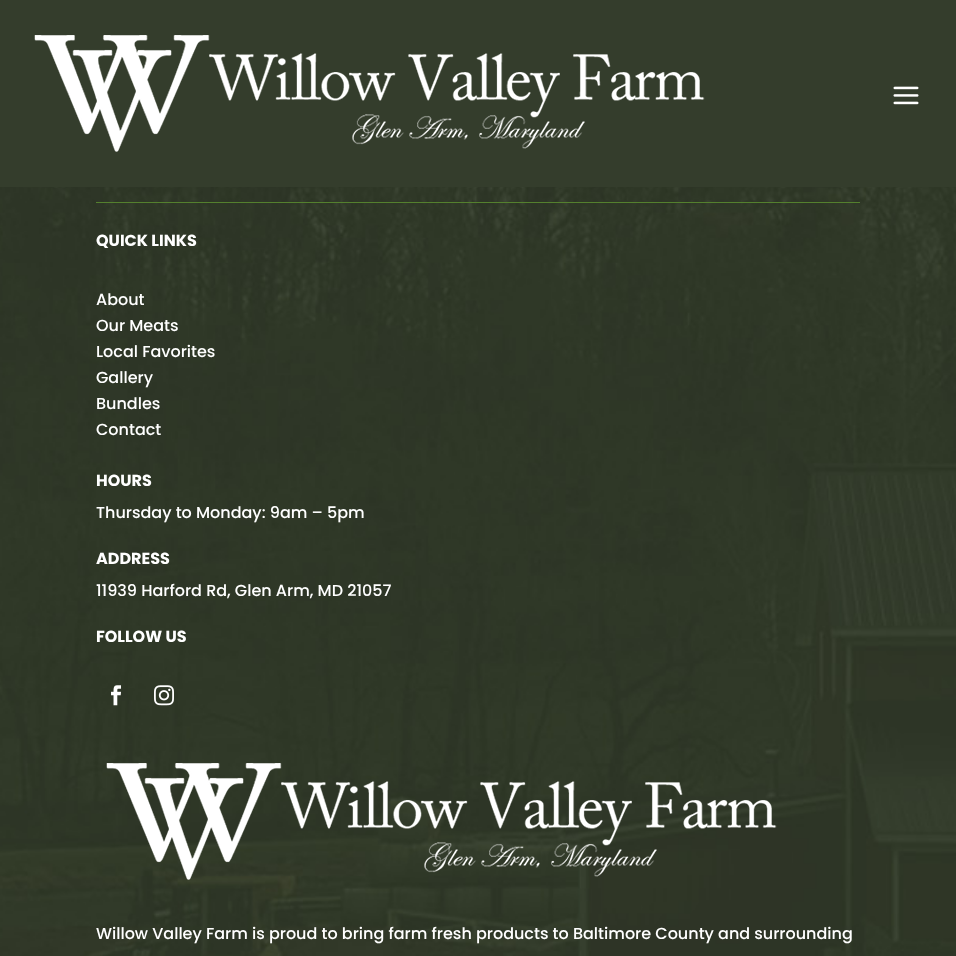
<svg xmlns="http://www.w3.org/2000/svg" width="956" height="956" viewBox="0 0 956 956">
  <rect width="100%" height="100%" fill="#fff"/>
  <path d="M0 0h956v187H0z" fill="#343d2c"/>
  <image x="34" y="35" width="671" height="117" href="img/1.png"/>
  <image x="893" y="86" width="26" height="19" href="img/2.png"/>
  <image x="0" y="187" width="956" height="769" href="img/3.png"/>
  <path d="M96 202h764v1H96z" fill="#54802e"/>
  <image x="111" y="685" width="10" height="21" href="img/4.png"/>
  <image x="154" y="685" width="20" height="21" href="img/5.png"/>
  <image x="106" y="763" width="671" height="117" href="img/6.png"/>
  <text x="96" y="246" font-family="Poppins" font-size="16" font-weight="bold" fill="#fff">QUICK LINKS</text>
  <g font-family="Poppins" font-size="16" font-weight="500" fill="#fff">
    <text x="96" y="305">About</text>
    <text x="96" y="331">Our Meats</text>
    <text x="96" y="357">Local Favorites</text>
    <text x="96" y="383">Gallery</text>
    <text x="96" y="409">Bundles</text>
    <text x="96" y="435">Contact</text>
  </g>
  <text x="96" y="486" font-family="Poppins" font-size="16" font-weight="bold" fill="#fff">HOURS</text>
  <text x="96" y="518" font-family="Poppins" font-size="16" font-weight="500" fill="#fff">Thursday to Monday: 9am – 5pm</text>
  <text x="96" y="564" font-family="Poppins" font-size="16" font-weight="bold" fill="#fff">ADDRESS</text>
  <text x="96" y="596" font-family="Poppins" font-size="16" font-weight="500" fill="#fff">11939 Harford Rd, Glen Arm, MD 21057</text>
  <text x="96" y="642" font-family="Poppins" font-size="16" font-weight="bold" fill="#fff">FOLLOW US</text>
  <text x="96" y="939" font-family="Poppins" font-size="16" font-weight="500" fill="#fff">Willow Valley Farm is proud to bring farm fresh products to Baltimore County and surrounding</text>
</svg>
